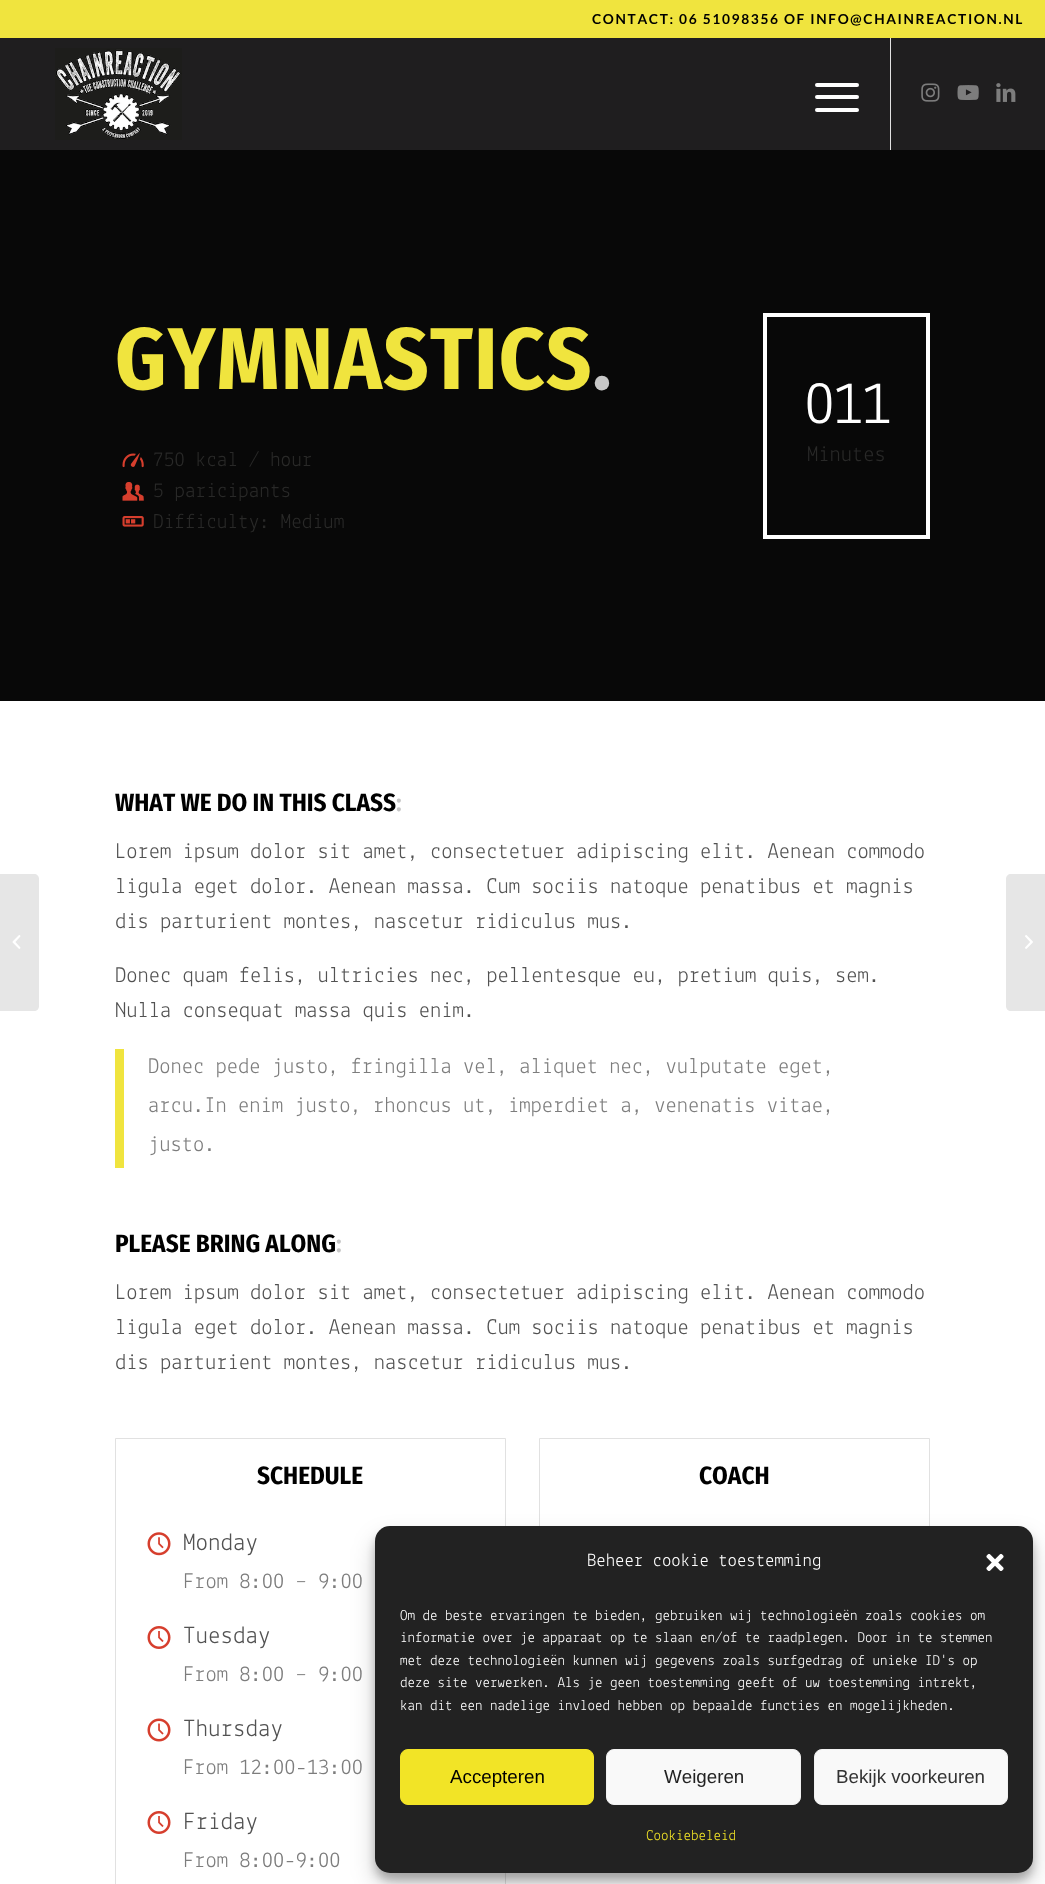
<svg xmlns="http://www.w3.org/2000/svg" width="1045" height="1884" viewBox="0 0 1045 1884">
  <style>*{font-kerning:none!important;font-variant-ligatures:none!important}</style>
  <rect width="100%" height="100%" fill="#fff"/>
  <path d="M0 0h1045v38H0z" fill="#f0e43e"/>
  <path d="M0 38h1045v112H0z" fill="#1f1e1f"/>
  <image x="55" y="48" width="127" height="92" href="img/1.png"/>
  <path d="M890 38h1v112H890z" fill="#e1e1e1"/>
  <rect x="815" y="95" width="44" height="4" rx="2" fill="#fff"/>
  <rect x="815" y="83" width="44" height="4" rx="2" fill="#fff"/>
  <rect x="815" y="108" width="44" height="4" rx="2" fill="#fff"/>
  <image x="921" y="83" width="19" height="19" href="img/2.png"/>
  <image x="957" y="85" width="22" height="15" href="img/3.png"/>
  <image x="996" y="83" width="20" height="19" href="img/4.png"/>
  <path d="M0 874H34C37 874 39 876 39 879V1006C39 1009 37 1011 34 1011H0Z" fill="#e6e6e6"/>
  <image x="12" y="935" width="9" height="14" href="img/5.png"/>
  <path d="M0 150h1045v551H0z" fill="#080808"/>
  <image x="122" y="453" width="22" height="15" href="img/6.png"/>
  <image x="122" y="482" width="22" height="19" href="img/7.png"/>
  <image x="122" y="516" width="22" height="11" href="img/8.png"/>
  <path d="M765 315h163v222H765z" fill="none" stroke="#fff" stroke-width="4"/>
  <path d="M115 1049h9v119H115z" fill="#f0e43e"/>
  <path d="M115.5 1438.5h390v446H115.5z" fill="none" stroke="#e1e1e1"/>
  <image x="147" y="1532" width="24" height="24" href="img/9.png"/>
  <image x="147" y="1626" width="24" height="23" href="img/10.png"/>
  <image x="147" y="1718" width="24" height="24" href="img/11.png"/>
  <image x="147" y="1811" width="24" height="23" href="img/10.png"/>
  <path d="M539.5 1438.5h390v260H539.5z" fill="none" stroke="#e1e1e1"/>
  <path d="M1011 874H1045V1011H1011C1008 1011 1006 1009 1006 1006V879C1006 876 1008 874 1011 874Z" fill="#e6e6e6"/>
  <image x="1025" y="935" width="8" height="14" href="img/12.png"/>
  <rect x="375" y="1534" width="658" height="346" rx="15" fill="#0000003b" filter="blur(4px)"/>
  <rect x="375" y="1539" width="658" height="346" rx="15" fill="#00000030" filter="blur(12.5px)"/>
  <rect x="375" y="1526" width="658" height="347" rx="15" fill="#222"/>
  <image x="986" y="1553" width="18" height="18" href="img/13.png"/>
  <rect x="400.5" y="1749.5" width="193" height="55" rx="7.5" fill="#f2e426" stroke="#f2e426"/>
  <rect x="606.5" y="1749.5" width="194" height="55" rx="7.5" fill="#f9f9f9" stroke="#f2f2f2"/>
  <rect x="814.5" y="1749.5" width="193" height="55" rx="7.5" fill="#f9f9f9" stroke="#f2f2f2"/>
  <text x="592" y="24" font-family="Lato" font-size="13.75" font-weight="bold" letter-spacing="1.65" fill="#000">CONTACT: 06 51098356 OF INFO@CHAINREACTION.NL</text>
  <text x="115" y="389" font-family="Fira Sans Condensed" font-size="87.5" font-weight="bold" letter-spacing="1.25" fill="#f0e43e">GYMNASTICS</text>
  <text x="592" y="389" font-family="Fira Sans Condensed" font-size="87.5" font-weight="600" letter-spacing="1.25" fill="#c7c7c7">.</text>
  <g font-family="Lekton" font-size="21.25" fill="#292928">
    <text x="153" y="466">750 kcal / hour</text>
    <text x="153" y="497">5 paricipants</text>
    <text x="153" y="528">Difficulty: Medium</text>
  </g>
  <text x="804" y="423" font-family="Lekton" font-size="62" letter-spacing="-2.5" fill="#fff">011</text>
  <text x="807" y="461" font-family="Lekton" font-size="22.5" fill="#292928">Minutes</text>
  <text x="115" y="811" font-family="Fira Sans Condensed" font-size="25" font-weight="bold" fill="#000">WHAT WE DO IN THIS CLASS</text>
  <text x="396" y="811" font-family="Fira Sans Condensed" font-size="25" font-weight="600" fill="#c7c7c7">:</text>
  <g font-family="Lekton" font-size="22.5" fill="#525252">
    <text x="115" y="858">Lorem ipsum dolor sit amet, consectetuer adipiscing elit. Aenean commodo</text>
    <text x="115" y="893">ligula eget dolor. Aenean massa. Cum sociis natoque penatibus et magnis</text>
    <text x="115" y="928">dis parturient montes, nascetur ridiculus mus.</text>
    <text x="115" y="982">Donec quam felis, ultricies nec, pellentesque eu, pretium quis, sem.</text>
    <text x="115" y="1017">Nulla consequat massa quis enim.</text>
  </g>
  <g font-family="Lekton" font-size="22.5" fill="#7d7d7d">
    <text x="148" y="1073">Donec pede justo, fringilla vel, aliquet nec, vulputate eget,</text>
    <text x="148" y="1112">arcu.In enim justo, rhoncus ut, imperdiet a, venenatis vitae,</text>
    <text x="148" y="1151">justo.</text>
  </g>
  <text x="115" y="1252" font-family="Fira Sans Condensed" font-size="25" font-weight="bold" fill="#000">PLEASE BRING ALONG</text>
  <text x="336" y="1252" font-family="Fira Sans Condensed" font-size="25" font-weight="600" fill="#c7c7c7">:</text>
  <g font-family="Lekton" font-size="22.5" fill="#525252">
    <text x="115" y="1299">Lorem ipsum dolor sit amet, consectetuer adipiscing elit. Aenean commodo</text>
    <text x="115" y="1334">ligula eget dolor. Aenean massa. Cum sociis natoque penatibus et magnis</text>
    <text x="115" y="1369">dis parturient montes, nascetur ridiculus mus.</text>
  </g>
  <text x="257" y="1484" font-family="Fira Sans Condensed" font-size="25" font-weight="bold" fill="#000">SCHEDULE</text>
  <text x="183" y="1550" font-family="Lekton" font-size="25" fill="#525252">Monday</text>
  <text x="183" y="1588" font-family="Lekton" font-size="22.5" fill="#7d7d7d">From 8:00 – 9:00</text>
  <text x="183" y="1643" font-family="Lekton" font-size="25" fill="#525252">Tuesday</text>
  <text x="183" y="1681" font-family="Lekton" font-size="22.5" fill="#7d7d7d">From 8:00 – 9:00</text>
  <text x="183" y="1736" font-family="Lekton" font-size="25" fill="#525252">Thursday</text>
  <text x="183" y="1774" font-family="Lekton" font-size="22.5" fill="#7d7d7d">From 12:00-13:00</text>
  <text x="183" y="1829" font-family="Lekton" font-size="25" fill="#525252">Friday</text>
  <text x="183" y="1867" font-family="Lekton" font-size="22.5" fill="#7d7d7d">From 8:00-9:00</text>
  <text x="699" y="1484" font-family="Fira Sans Condensed" font-size="25" font-weight="bold" fill="#000">COACH</text>
  <text x="587" y="1566" font-family="Lekton" font-size="18.75" fill="#fff">Beheer cookie toestemming</text>
  <g font-family="Lekton" font-size="15" fill="#fff">
    <text x="400" y="1620">Om de beste ervaringen te bieden, gebruiken wij technologieën zoals cookies om</text>
    <text x="400" y="1642">informatie over je apparaat op te slaan en/of te raadplegen. Door in te stemmen</text>
    <text x="400" y="1665">met deze technologieën kunnen wij gegevens zoals surfgedrag of unieke ID's op</text>
    <text x="400" y="1687">deze site verwerken. Als je geen toestemming geeft of uw toestemming intrekt,</text>
    <text x="400" y="1710">kan dit een nadelige invloed hebben op bepaalde functies en mogelijkheden.</text>
  </g>
  <text x="450" y="1783" font-family="Liberation Sans" font-size="18.75" fill="#000">Accepteren</text>
  <text x="664" y="1783" font-family="Liberation Sans" font-size="18.75" fill="#222">Weigeren</text>
  <text x="836" y="1783" font-family="Liberation Sans" font-size="18.75" fill="#333">Bekijk voorkeuren</text>
  <text x="646" y="1840" font-family="Lekton" font-size="15" fill="#f2e426">Cookiebeleid</text>
</svg>
